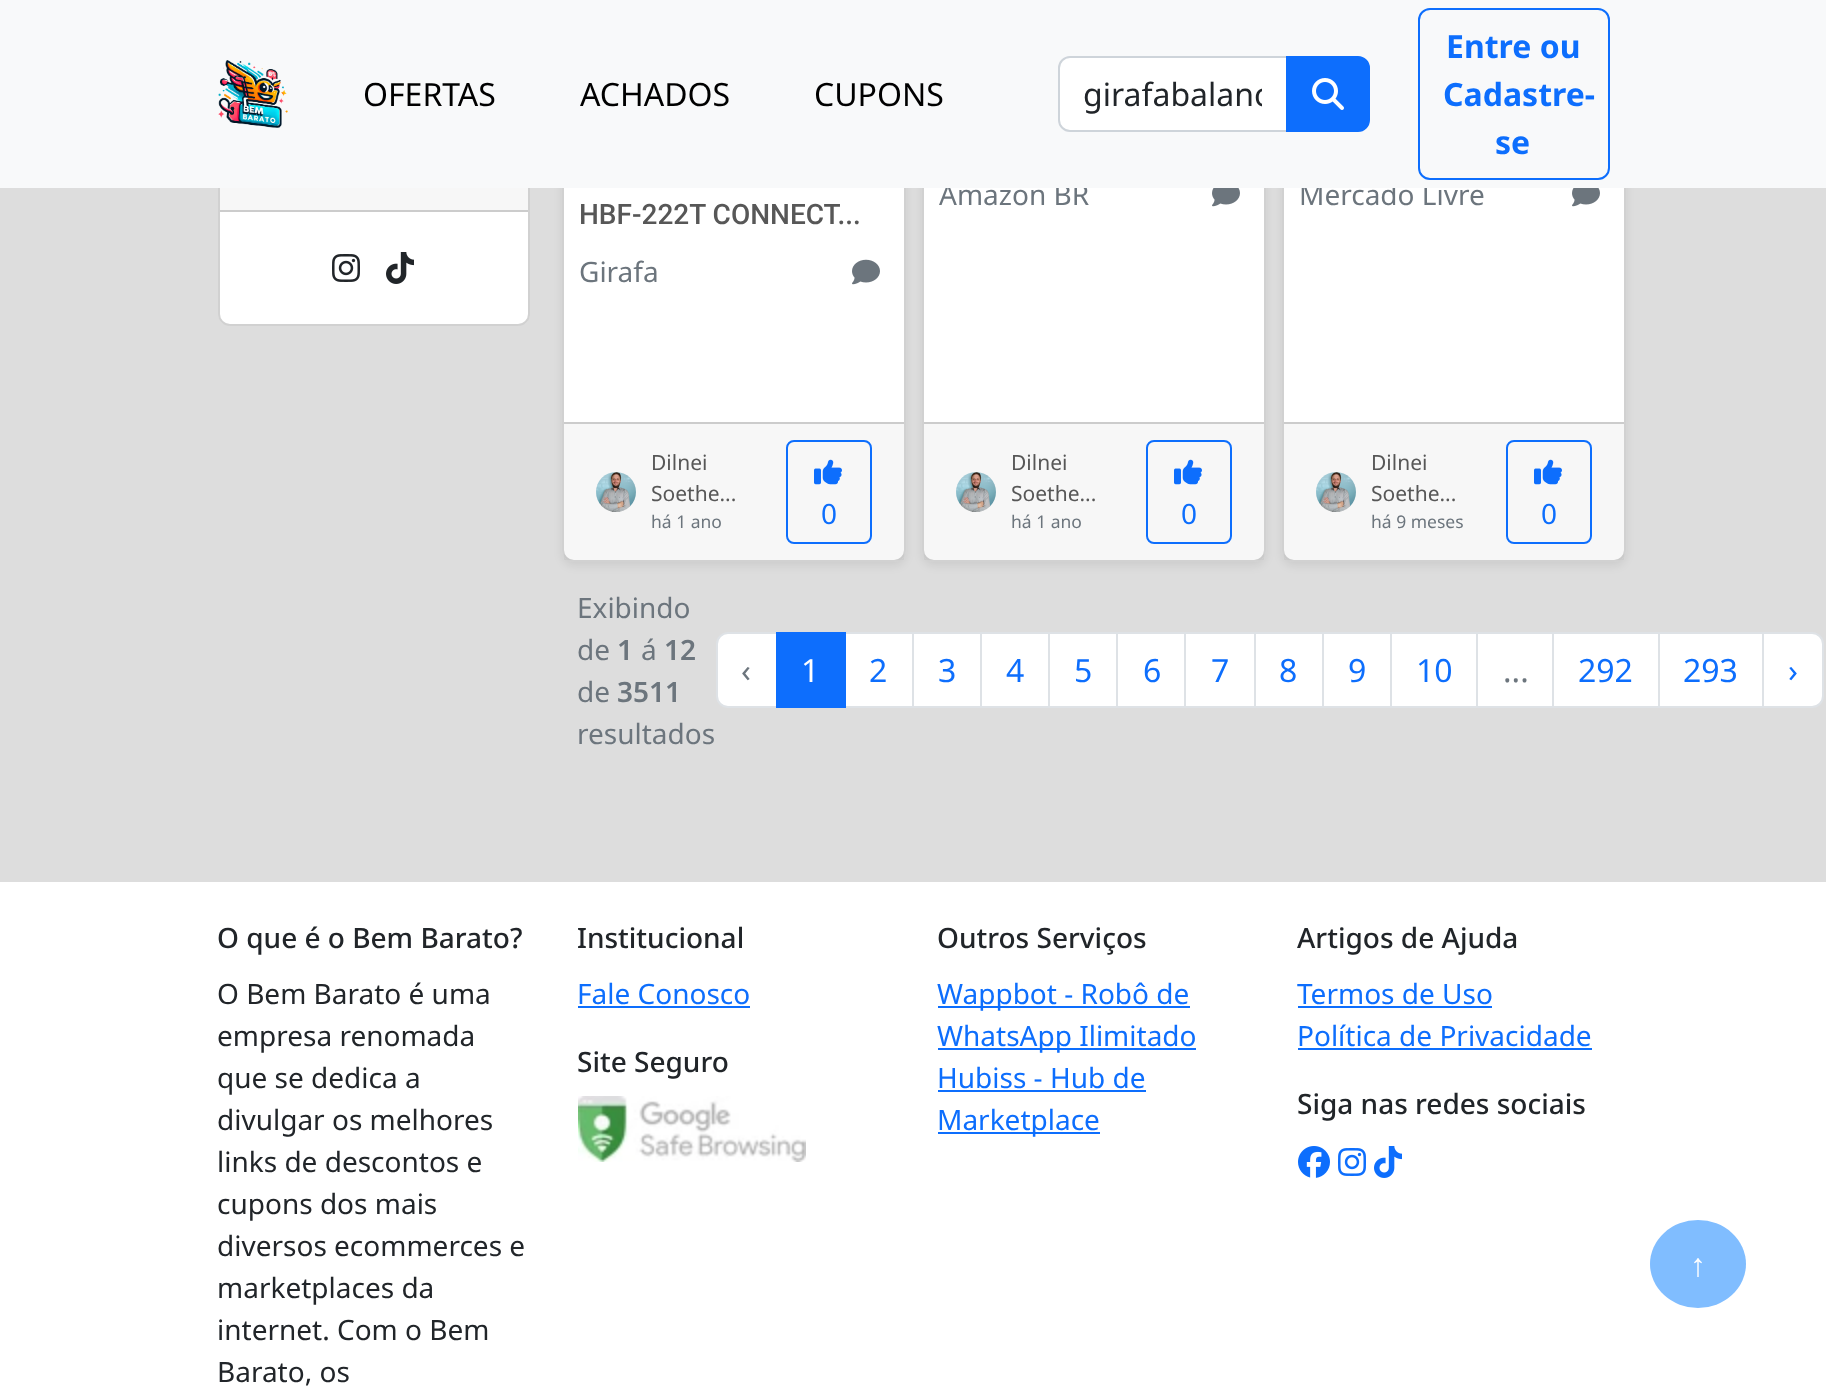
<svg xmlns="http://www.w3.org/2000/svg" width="1826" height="1387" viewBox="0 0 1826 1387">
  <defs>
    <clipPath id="clip1"><path d="M1084 70h178v48H1084z"/></clipPath>
  </defs>
  <rect width="100%" height="100%" fill="#ddd"/>
  <rect x="218" y="80" width="312" height="246" rx="12" fill="#fff"/>
  <rect x="219" y="81" width="310" height="244" rx="11" fill="none" stroke="#0000002e" stroke-width="2"/>
  <path d="M220 188h308v22H220z" fill="#00000008"/>
  <path d="M220 210h308v2H220z" fill="#ccc"/>
  <image x="332" y="254" width="28" height="28" href="img/3.png"/>
  <image x="386" y="252" width="28" height="32" href="img/4.png"/>
  <rect x="562" y="-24" width="344" height="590" rx="12" fill="#00000012" filter="blur(4px)"/>
  <rect x="562" y="-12" width="344" height="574" rx="12" fill="#fff"/>
  <rect x="563" y="-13" width="342" height="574" rx="11" fill="none" stroke="#0000002e" stroke-width="2"/>
  <image x="852" y="259" width="28" height="26" href="img/5.png"/>
  <path d="M564 424h340v136H564z" fill="#00000008"/>
  <path d="M564 422h340v2H564z" fill="#ccc"/>
  <image x="596" y="472" width="40" height="40" href="img/6.png"/>
  <rect x="787" y="441" width="84" height="102" rx="7" fill="none" stroke="#0d6efd" stroke-width="2"/>
  <image x="814" y="459" width="28" height="26" href="img/7.png"/>
  <rect x="922" y="-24" width="344" height="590" rx="12" fill="#00000012" filter="blur(4px)"/>
  <rect x="922" y="-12" width="344" height="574" rx="12" fill="#fff"/>
  <rect x="923" y="-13" width="342" height="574" rx="11" fill="none" stroke="#0000002e" stroke-width="2"/>
  <image x="1212" y="188" width="28" height="19" href="img/8.png"/>
  <path d="M924 424h340v136H924z" fill="#00000008"/>
  <path d="M924 422h340v2H924z" fill="#ccc"/>
  <image x="956" y="472" width="40" height="40" href="img/6.png"/>
  <rect x="1147" y="441" width="84" height="102" rx="7" fill="none" stroke="#0d6efd" stroke-width="2"/>
  <image x="1174" y="459" width="28" height="26" href="img/7.png"/>
  <rect x="1282" y="-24" width="344" height="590" rx="12" fill="#00000012" filter="blur(4px)"/>
  <rect x="1282" y="-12" width="344" height="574" rx="12" fill="#fff"/>
  <rect x="1283" y="-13" width="342" height="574" rx="11" fill="none" stroke="#0000002e" stroke-width="2"/>
  <image x="1572" y="188" width="28" height="19" href="img/8.png"/>
  <path d="M1284 424h340v136H1284z" fill="#00000008"/>
  <path d="M1284 422h340v2H1284z" fill="#ccc"/>
  <image x="1316" y="472" width="40" height="40" href="img/6.png"/>
  <rect x="1507" y="441" width="84" height="102" rx="7" fill="none" stroke="#0d6efd" stroke-width="2"/>
  <image x="1534" y="459" width="28" height="26" href="img/7.png"/>
  <path d="M728 633H777V707H728C722 707 717 702 717 696V644C717 638 722 633 728 633Z" fill="#fff" stroke="#dee2e6" stroke-width="2"/>
  <path d="M845 633h68v74H845z" fill="#fff" stroke="#dee2e6" stroke-width="2"/>
  <path d="M776 632h70v76H776z" fill="#0d6efd"/>
  <path d="M913 633h68v74H913z" fill="#fff" stroke="#dee2e6" stroke-width="2"/>
  <path d="M981 633h68v74H981z" fill="#fff" stroke="#dee2e6" stroke-width="2"/>
  <path d="M1049 633h68v74H1049z" fill="#fff" stroke="#dee2e6" stroke-width="2"/>
  <path d="M1117 633h68v74H1117z" fill="#fff" stroke="#dee2e6" stroke-width="2"/>
  <path d="M1185 633h70v74H1185z" fill="#fff" stroke="#dee2e6" stroke-width="2"/>
  <path d="M1255 633h68v74H1255z" fill="#fff" stroke="#dee2e6" stroke-width="2"/>
  <path d="M1323 633h68v74H1323z" fill="#fff" stroke="#dee2e6" stroke-width="2"/>
  <path d="M1391 633h86v74H1391z" fill="#fff" stroke="#dee2e6" stroke-width="2"/>
  <path d="M1477 633h76v74H1477z" fill="#fff" stroke="#dee2e6" stroke-width="2"/>
  <path d="M1553 633h106v74H1553z" fill="#fff" stroke="#dee2e6" stroke-width="2"/>
  <path d="M1659 633h104v74H1659z" fill="#fff" stroke="#dee2e6" stroke-width="2"/>
  <path d="M1763 633H1812C1818 633 1823 638 1823 644V696C1823 702 1818 707 1812 707H1763Z" fill="#fff" stroke="#dee2e6" stroke-width="2"/>
  <path d="M0 882h1826v505H0z" fill="#fff"/>
  <path d="M578 1006h172v2H578z" fill="#0d6efd"/>
  <image x="578" y="1096" width="228" height="66" href="img/9.png"/>
  <path d="M938 1006h252v2H938z" fill="#0d6efd"/>
  <path d="M938 1048h258v2H938z" fill="#0d6efd"/>
  <path d="M938 1090h208v2H938z" fill="#0d6efd"/>
  <path d="M938 1132h162v2H938z" fill="#0d6efd"/>
  <path d="M1298 1006h194v2H1298z" fill="#0d6efd"/>
  <path d="M1298 1048h294v2H1298z" fill="#0d6efd"/>
  <image x="1298" y="1146" width="32" height="32" href="img/10.png"/>
  <image x="1338" y="1148" width="28" height="28" href="img/11.png"/>
  <image x="1374" y="1146" width="28" height="32" href="img/12.png"/>
  <ellipse cx="1698" cy="1264" rx="48" ry="44" fill="#80bdff"/>
  <text x="579" y="224" font-family="Roboto" font-size="28" font-weight="500" fill="#575757">HBF-222T CONNECT...</text>
  <text x="579" y="282" font-family="Noto Sans" font-size="28" fill="#6c757d">Girafa</text>
  <g font-family="Noto Sans" font-size="21" fill="#575757">
    <text x="651" y="470">Dilnei</text>
    <text x="651" y="501">Soethe...</text>
  </g>
  <text x="651" y="528" font-family="Noto Sans" font-size="17.5" fill="#6c757d">há 1 ano</text>
  <text x="821" y="524" font-family="Noto Sans" font-size="28" fill="#0d6efd">0</text>
  <text x="939" y="205" font-family="Noto Sans" font-size="28" fill="#6c757d">Amazon BR</text>
  <g font-family="Noto Sans" font-size="21" fill="#575757">
    <text x="1011" y="470">Dilnei</text>
    <text x="1011" y="501">Soethe...</text>
  </g>
  <text x="1011" y="528" font-family="Noto Sans" font-size="17.5" fill="#6c757d">há 1 ano</text>
  <text x="1181" y="524" font-family="Noto Sans" font-size="28" fill="#0d6efd">0</text>
  <text x="1299" y="205" font-family="Noto Sans" font-size="28" fill="#6c757d">Mercado Livre</text>
  <path d="M0 0h1826v188H0z" fill="#f8f9fa"/>
  <path d="M1070 57H1287V131H1070C1064 131 1059 126 1059 120V68C1059 62 1064 57 1070 57Z" fill="#fff" stroke="#ced4da" stroke-width="2"/>
  <path d="M1287 57H1358C1364 57 1369 62 1369 68V120C1369 126 1364 131 1358 131H1287Z" fill="#0d6efd" stroke="#0d6efd" stroke-width="2"/>
  <image x="1312" y="78" width="32" height="32" href="img/2.png"/>
  <g clip-path="url(#clip1)">
    <text x="1083" y="106" font-family="Noto Sans" font-size="32" fill="#212529">girafabalanc</text>
  </g>
  <rect x="1419" y="9" width="190" height="170" rx="11" fill="none" stroke="#0d6efd" stroke-width="2"/>
  <g font-family="Noto Sans" font-size="32" font-weight="bold" fill="#0d6efd">
    <text x="1495" y="154">se</text>
    <text x="1443" y="106">Cadastre-</text>
    <text x="1446" y="58">Entre ou</text>
  </g>
  <g font-family="Noto Sans" font-size="32" fill="#000">
    <text x="814" y="106">CUPONS</text>
    <text x="580" y="106">ACHADOS</text>
    <text x="363" y="106">OFERTAS</text>
  </g>
  <image x="218" y="60" width="70" height="68" href="img/1.png"/>
  <g font-family="Noto Sans" font-size="21" fill="#575757">
    <text x="1371" y="470">Dilnei</text>
    <text x="1371" y="501">Soethe...</text>
  </g>
  <text x="1371" y="528" font-family="Noto Sans" font-size="17.5" fill="#6c757d">há 9 meses</text>
  <text x="1541" y="524" font-family="Noto Sans" font-size="28" fill="#0d6efd">0</text>
  <g font-family="Noto Sans" font-size="28" fill="#6c757d">
    <text x="577" y="618">Exibindo</text>
    <text x="577" y="660">de</text>
  </g>
  <text x="617" y="660" font-family="Noto Sans" font-size="28" font-weight="600" fill="#6c757d">1</text>
  <text x="641" y="660" font-family="Noto Sans" font-size="28" fill="#6c757d">á</text>
  <text x="664" y="660" font-family="Noto Sans" font-size="28" font-weight="600" fill="#6c757d">12</text>
  <text x="577" y="702" font-family="Noto Sans" font-size="28" fill="#6c757d">de</text>
  <text x="617" y="702" font-family="Noto Sans" font-size="28" font-weight="600" fill="#6c757d">3511</text>
  <text x="577" y="744" font-family="Noto Sans" font-size="28" fill="#6c757d">resultados</text>
  <text x="741" y="682" font-family="Noto Sans" font-size="32" fill="#6c757d">‹</text>
  <text x="801" y="682" font-family="Noto Sans" font-size="32" fill="#fff">1</text>
  <g font-family="Noto Sans" font-size="32" fill="#0d6efd">
    <text x="869" y="682">2</text>
    <text x="938" y="682">3</text>
    <text x="1006" y="682">4</text>
    <text x="1074" y="682">5</text>
    <text x="1143" y="682">6</text>
    <text x="1211" y="682">7</text>
    <text x="1279" y="682">8</text>
    <text x="1348" y="682">9</text>
    <text x="1416" y="682">10</text>
  </g>
  <text x="1503" y="682" font-family="Noto Sans" font-size="32" fill="#6c757d">...</text>
  <g font-family="Noto Sans" font-size="32" fill="#0d6efd">
    <text x="1578" y="682">292</text>
    <text x="1683" y="682">293</text>
    <text x="1788" y="682">›</text>
  </g>
  <text x="217" y="948" font-family="Noto Sans" font-size="28" font-weight="500" fill="#212529">O que é o Bem Barato?</text>
  <g font-family="Noto Sans" font-size="28" fill="#212529">
    <text x="217" y="1004">O Bem Barato é uma</text>
    <text x="217" y="1046">empresa renomada</text>
    <text x="217" y="1088">que se dedica a</text>
    <text x="217" y="1130">divulgar os melhores</text>
    <text x="217" y="1172">links de descontos e</text>
    <text x="217" y="1214">cupons dos mais</text>
    <text x="217" y="1256">diversos ecommerces e</text>
    <text x="217" y="1298">marketplaces da</text>
    <text x="217" y="1340">internet. Com o Bem</text>
    <text x="217" y="1382">Barato, os</text>
  </g>
  <text x="577" y="948" font-family="Noto Sans" font-size="28" font-weight="500" fill="#212529">Institucional</text>
  <text x="577" y="1004" font-family="Noto Sans" font-size="28" fill="#0d6efd">Fale Conosco</text>
  <g font-family="Noto Sans" font-size="28" font-weight="500" fill="#212529">
    <text x="577" y="1072">Site Seguro</text>
    <text x="937" y="948">Outros Serviços</text>
  </g>
  <g font-family="Noto Sans" font-size="28" fill="#0d6efd">
    <text x="937" y="1004">Wappbot - Robô de</text>
    <text x="937" y="1046">WhatsApp Ilimitado</text>
    <text x="937" y="1088">Hubiss - Hub de</text>
    <text x="937" y="1130">Marketplace</text>
  </g>
  <text x="1297" y="948" font-family="Noto Sans" font-size="28" font-weight="500" fill="#212529">Artigos de Ajuda</text>
  <g font-family="Noto Sans" font-size="28" fill="#0d6efd">
    <text x="1297" y="1004">Termos de Uso</text>
    <text x="1297" y="1046">Política de Privacidade</text>
  </g>
  <text x="1297" y="1114" font-family="Noto Sans" font-size="28" font-weight="500" fill="#212529">Siga nas redes sociais</text>
  <text x="1690" y="1276" font-family="Liberation Sans" font-size="32" fill="#fff">↑</text>
</svg>
